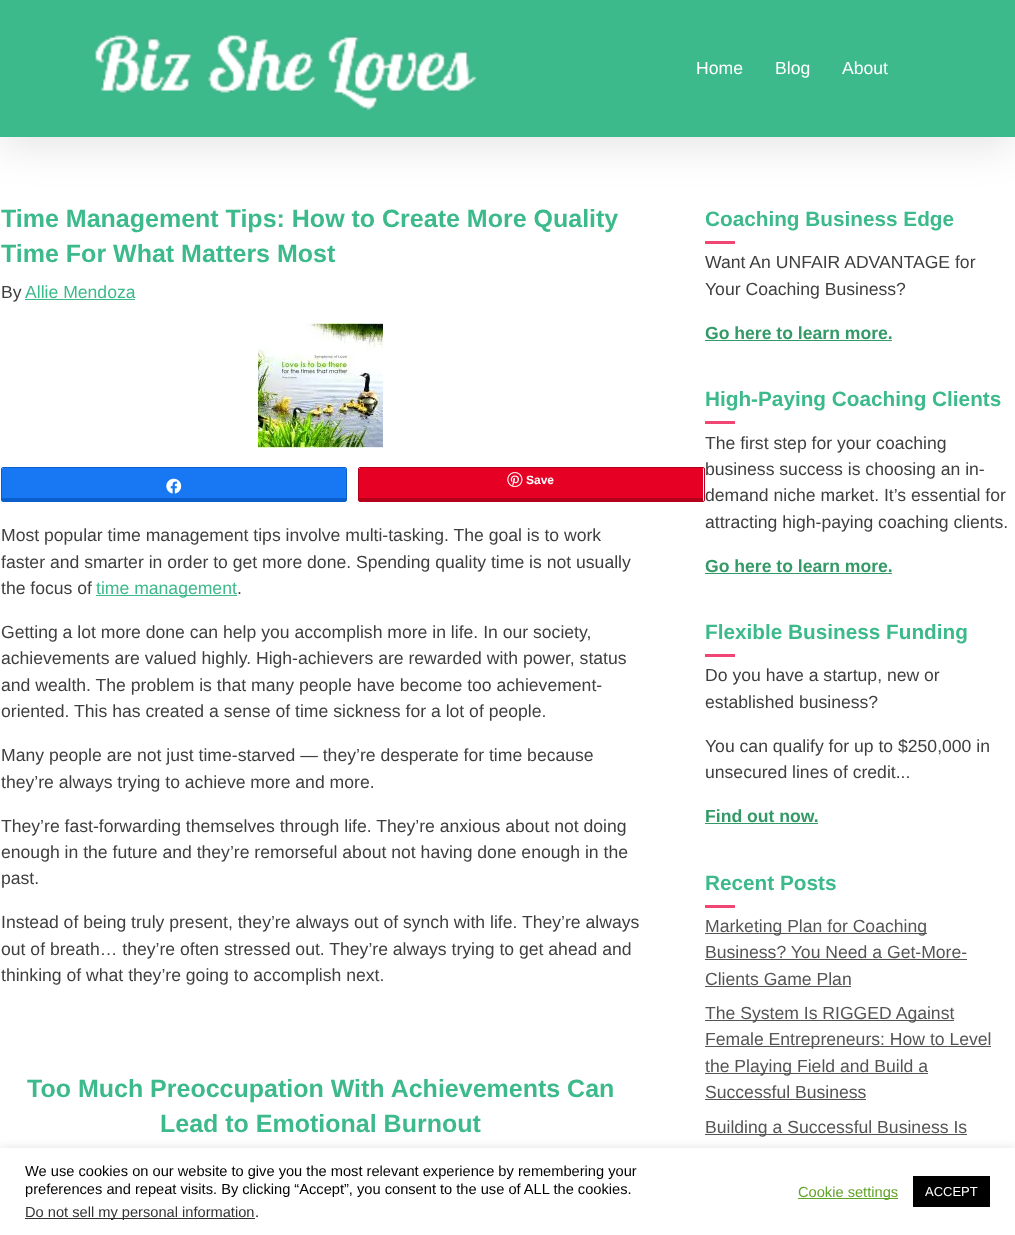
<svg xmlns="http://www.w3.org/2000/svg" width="1015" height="1235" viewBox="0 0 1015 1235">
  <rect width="100%" height="100%" fill="#fff"/>
  <path d="M0 10h1015v137H0z" fill="#0000001a" filter="blur(20px)"/>
  <path d="M0 0h1015v137H0z" fill="#3dba8c"/>
  <image x="94" y="34" width="383" height="76" href="img/1.png"/>
  <path d="M25 299h110v1H25z" fill="#3dba8c"/>
  <image x="258" y="323" width="125" height="125" href="img/2.png"/>
  <path d="M3 468H345C345 468 346 468 346 469V498H2V469Z" fill="#1877f2"/>
  <rect x="1.5" y="467.5" width="345" height="34" rx="1.5" fill="none" stroke="#0b5fcc"/>
  <path d="M2 498h344v3H2z" fill="#0b5fcc"/>
  <image x="166" y="478" width="16" height="16" href="img/3.png"/>
  <path d="M360 468H702C703 468 703 468 703 469V498H359V469Z" fill="#e60023"/>
  <rect x="358.5" y="467.5" width="346" height="34" rx="1.5" fill="none" stroke="#b3001b"/>
  <path d="M359 498h344v3H359z" fill="#b3001b"/>
  <image x="507" y="472" width="16" height="15" href="img/4.png"/>
  <path d="M96 595h141v1H96z" fill="#3dba8c"/>
  <path d="M705 241h30v3H705z" fill="#f14673"/>
  <path d="M705 340h187v1H705z" fill="#396"/>
  <path d="M705 421h30v3H705z" fill="#f14673"/>
  <path d="M705 573h187v1H705z" fill="#396"/>
  <path d="M705 654h30v3H705z" fill="#f14673"/>
  <path d="M705 823h113v1H705z" fill="#396"/>
  <path d="M705 905h30v3H705z" fill="#f14673"/>
  <path d="M705 933h222v1H705z" fill="#555"/>
  <path d="M705 959h262v1H705z" fill="#555"/>
  <path d="M705 986h146v1H705z" fill="#555"/>
  <path d="M705 1020h249v1H705z" fill="#555"/>
  <path d="M705 1046h286v1H705z" fill="#555"/>
  <path d="M705 1073h223v1H705z" fill="#555"/>
  <path d="M705 1099h161v1H705z" fill="#555"/>
  <path d="M705 1134h262v1H705z" fill="#555"/>
  <path d="M0 1147h1015v87H0z" fill="#acabab4d" filter="blur(5px)"/>
  <path d="M0 1148h1015v87H0z" fill="#fff"/>
  <path d="M25 1218h230v1H25z" fill="#333"/>
  <path d="M798 1198h100v1H798z" fill="#62a329"/>
  <path d="M913 1176h77v31H913z" fill="#000"/>
  <g font-family="Liberation Sans" font-size="17.6" fill="#fff">
    <text x="696" y="74">Home</text>
    <text x="775" y="74">Blog</text>
    <text x="842" y="74">About</text>
  </g>
  <g font-family="Liberation Sans" font-size="25" font-weight="bold" fill="#3dba8c">
    <text x="1" y="227">Time Management Tips: How to Create More Quality</text>
    <text x="1" y="262">Time For What Matters Most</text>
  </g>
  <text x="1" y="298" font-family="Liberation Sans" font-size="17.6" fill="#3f3f3f">By</text>
  <text x="25" y="298" font-family="Liberation Sans" font-size="17.6" fill="#3dba8c">Allie Mendoza</text>
  <text x="526" y="484" font-family="Liberation Sans" font-size="12" font-weight="bold" fill="#fff">Save</text>
  <g font-family="Liberation Sans" font-size="17.6" fill="#3f3f3f">
    <text x="1" y="541">Most popular time management tips involve multi-tasking. The goal is to work</text>
    <text x="1" y="568">faster and smarter in order to get more done. Spending quality time is not usually</text>
    <text x="1" y="594">the focus of</text>
  </g>
  <text x="96" y="594" font-family="Liberation Sans" font-size="17.6" fill="#3dba8c">time management</text>
  <g font-family="Liberation Sans" font-size="17.6" fill="#3f3f3f">
    <text x="237" y="594">.</text>
    <text x="1" y="638">Getting a lot more done can help you accomplish more in life. In our society,</text>
    <text x="1" y="664">achievements are valued highly. High-achievers are rewarded with power, status</text>
    <text x="1" y="691">and wealth. The problem is that many people have become too achievement-</text>
    <text x="1" y="717">oriented. This has created a sense of time sickness for a lot of people.</text>
    <text x="1" y="761">Many people are not just time-starved — they’re desperate for time because</text>
    <text x="1" y="788">they’re always trying to achieve more and more.</text>
    <text x="1" y="832">They’re fast-forwarding themselves through life. They’re anxious about not doing</text>
    <text x="1" y="858">enough in the future and they’re remorseful about not having done enough in the</text>
    <text x="1" y="884">past.</text>
    <text x="1" y="928">Instead of being truly present, they’re always out of synch with life. They’re always</text>
    <text x="1" y="955">out of breath… they’re often stressed out. They’re always trying to get ahead and</text>
    <text x="1" y="981">thinking of what they’re going to accomplish next.</text>
  </g>
  <g font-family="Liberation Sans" font-size="25" font-weight="bold" fill="#3dba8c">
    <text x="27" y="1097">Too Much Preoccupation With Achievements Can</text>
    <text x="160" y="1132">Lead to Emotional Burnout</text>
  </g>
  <text x="705" y="226" font-family="Liberation Sans" font-size="20.75" font-weight="bold" fill="#3dba8c">Coaching Business Edge</text>
  <g font-family="Liberation Sans" font-size="17.6" fill="#3f3f3f">
    <text x="705" y="268">Want An UNFAIR ADVANTAGE for</text>
    <text x="705" y="295">Your Coaching Business?</text>
  </g>
  <text x="705" y="339" font-family="Liberation Sans" font-size="17.6" font-weight="bold" fill="#396">Go here to learn more.</text>
  <text x="705" y="406" font-family="Liberation Sans" font-size="20.75" font-weight="bold" fill="#3dba8c">High-Paying Coaching Clients</text>
  <g font-family="Liberation Sans" font-size="17.6" fill="#3f3f3f">
    <text x="705" y="449">The first step for your coaching</text>
    <text x="705" y="475">business success is choosing an in-</text>
    <text x="705" y="501">demand niche market. It’s essential for</text>
    <text x="705" y="528">attracting high-paying coaching clients.</text>
  </g>
  <text x="705" y="572" font-family="Liberation Sans" font-size="17.6" font-weight="bold" fill="#396">Go here to learn more.</text>
  <text x="705" y="639" font-family="Liberation Sans" font-size="20.75" font-weight="bold" fill="#3dba8c">Flexible Business Funding</text>
  <g font-family="Liberation Sans" font-size="17.6" fill="#3f3f3f">
    <text x="705" y="681">Do you have a startup, new or</text>
    <text x="705" y="708">established business?</text>
    <text x="705" y="752">You can qualify for up to $250,000 in</text>
    <text x="705" y="778">unsecured lines of credit...</text>
  </g>
  <text x="705" y="822" font-family="Liberation Sans" font-size="17.6" font-weight="bold" fill="#396">Find out now.</text>
  <text x="705" y="890" font-family="Liberation Sans" font-size="20.75" font-weight="bold" fill="#3dba8c">Recent Posts</text>
  <g font-family="Liberation Sans" font-size="17.6" fill="#555">
    <text x="705" y="932">Marketing Plan for Coaching</text>
    <text x="705" y="958">Business? You Need a Get-More-</text>
    <text x="705" y="985">Clients Game Plan</text>
    <text x="705" y="1019">The System Is RIGGED Against</text>
    <text x="705" y="1045">Female Entrepreneurs: How to Level</text>
    <text x="705" y="1072">the Playing Field and Build a</text>
    <text x="705" y="1098">Successful Business</text>
    <text x="705" y="1133">Building a Successful Business Is</text>
  </g>
  <g font-family="Liberation Sans" font-size="14.65" fill="#000">
    <text x="25" y="1176">We use cookies on our website to give you the most relevant experience by remembering your</text>
    <text x="25" y="1194">preferences and repeat visits. By clicking “Accept”, you consent to the use of ALL the cookies.</text>
  </g>
  <text x="25" y="1217" font-family="Liberation Sans" font-size="14.65" fill="#333">Do not sell my personal information</text>
  <text x="255" y="1217" font-family="Liberation Sans" font-size="14.65" fill="#000">.</text>
  <text x="798" y="1197" font-family="Liberation Sans" font-size="14.65" fill="#62a329">Cookie settings</text>
  <text x="925" y="1196" font-family="Liberation Sans" font-size="13" fill="#fff">ACCEPT</text>
</svg>
